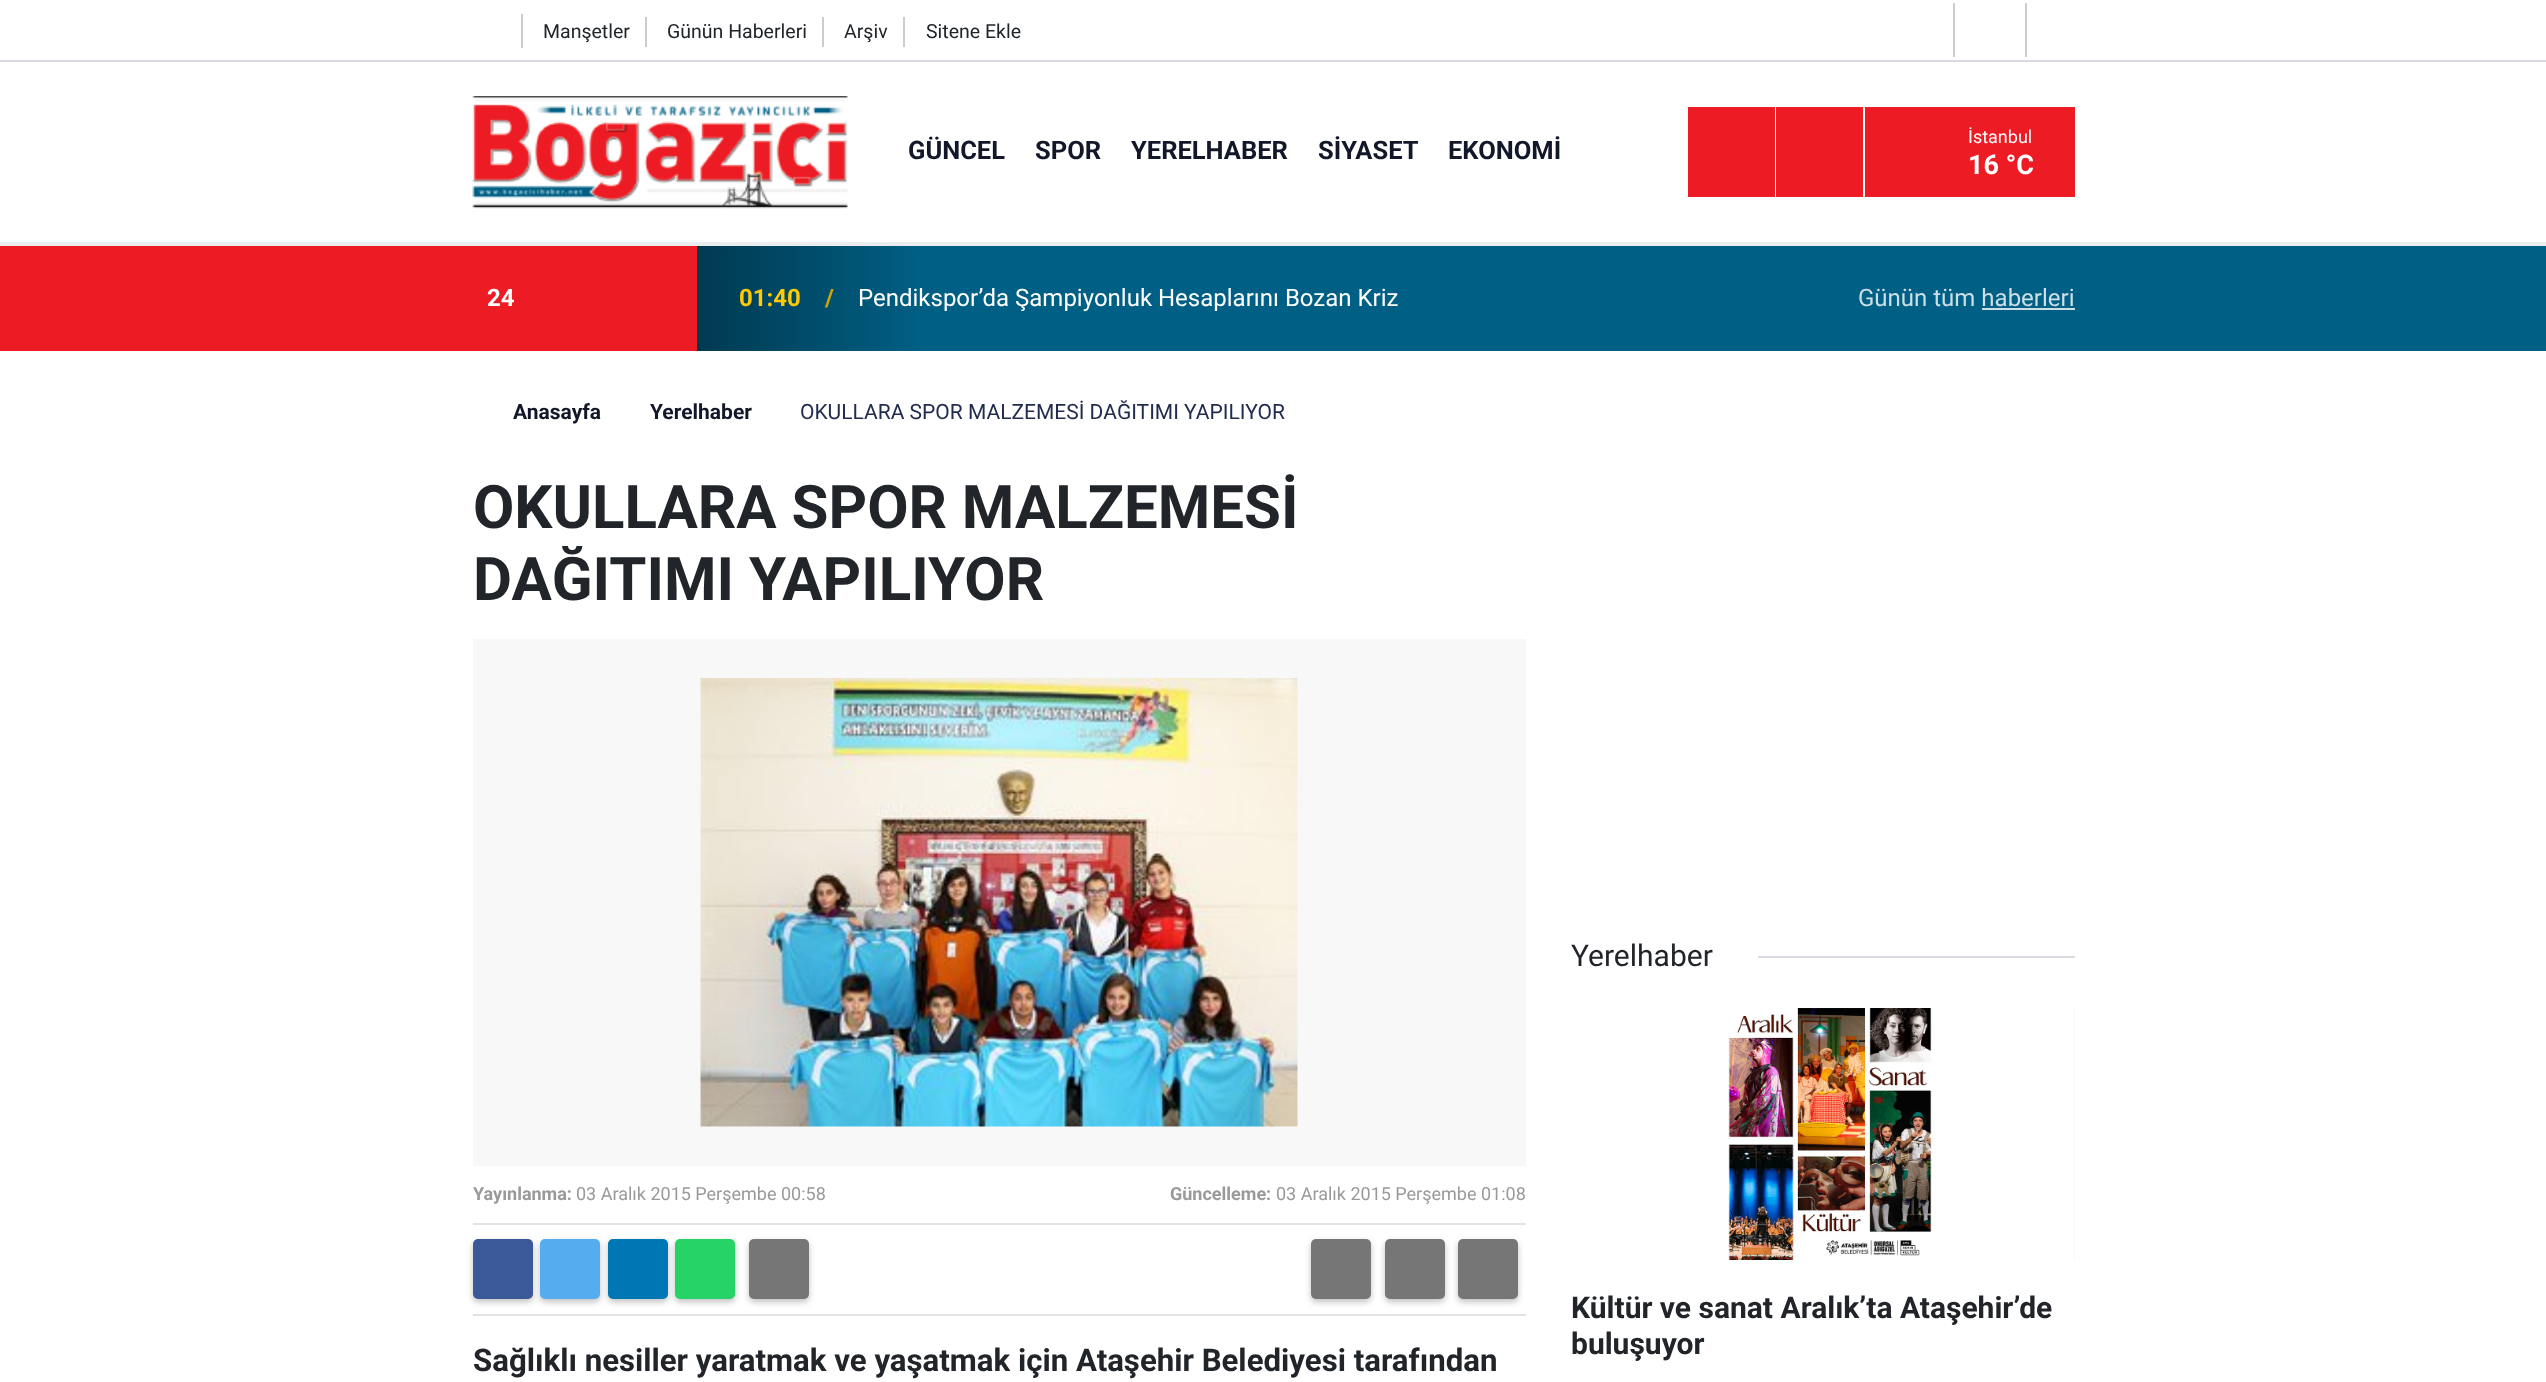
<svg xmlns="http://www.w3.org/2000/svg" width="2546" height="1382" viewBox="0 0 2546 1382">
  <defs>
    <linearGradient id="g1" gradientUnits="userSpaceOnUse" x1="473" y1="299" x2="2075" y2="298"><stop offset="0.05" stop-color="#ed1c24"/><stop offset="0.14" stop-color="#ed1c24"/><stop offset="0.14" stop-color="#003a51"/><stop offset="0.28" stop-color="#005f84"/></linearGradient>
  </defs>
  <rect width="100%" height="100%" fill="#fff"/>
  <path d="M521 14h2v34H521z" fill="#ccc"/>
  <path d="M645 17h2v30H645z" fill="#ccc"/>
  <path d="M822 17h2v30H822z" fill="#ccc"/>
  <path d="M903 17h2v30H903z" fill="#ccc"/>
  <path d="M1953 3h2v54H1953z" fill="#ccc"/>
  <path d="M2025 3h2v54H2025z" fill="#ccc"/>
  <path d="M0 60h2546v2H0z" fill="#d7dae1"/>
  <path d="M0 242h2546v4H0z" fill="#ecedee"/>
  <image x="472" y="96" width="376" height="113" href="img/1.png"/>
  <path d="M1688 107h87v90H1688z" fill="#ed1c24"/>
  <path d="M1776 107h87v90H1776z" fill="#ed1c24"/>
  <path d="M1865 107h210v90H1865z" fill="#ed1c24"/>
  <path d="M0 246h473v105H0z" fill="#ed1c24"/>
  <path d="M2075 246h471v105H2075z" fill="#005f84"/>
  <path d="M473 246h1602v105H473z" fill="url(#g1)"/>
  <path d="M1982 308h93v2H1982z" fill="#ccdfe6"/>
  <path d="M473 639h1053v527H473z" fill="#f8f8f8"/>
  <image x="700" y="678" width="598" height="449" href="img/2.png"/>
  <path d="M473 1223h1053v2H473z" fill="#e3e3e3"/>
  <path d="M473 1314h1053v2H473z" fill="#e3e3e3"/>
  <rect x="473" y="1242" width="60" height="60" rx="5" fill="#3232324d" filter="blur(3px)"/>
  <rect x="473" y="1239" width="60" height="60" rx="5" fill="#3b5999"/>
  <rect x="540" y="1242" width="60" height="60" rx="5" fill="#3232324d" filter="blur(3px)"/>
  <rect x="540" y="1239" width="60" height="60" rx="5" fill="#55acee"/>
  <rect x="608" y="1242" width="60" height="60" rx="5" fill="#3232324d" filter="blur(3px)"/>
  <rect x="608" y="1239" width="60" height="60" rx="5" fill="#0077b5"/>
  <rect x="675" y="1242" width="60" height="60" rx="5" fill="#3232324d" filter="blur(3px)"/>
  <rect x="675" y="1239" width="60" height="60" rx="5" fill="#25d366"/>
  <rect x="749" y="1242" width="60" height="60" rx="5" fill="#3232324d" filter="blur(3px)"/>
  <rect x="749" y="1239" width="60" height="60" rx="5" fill="#767676"/>
  <rect x="1311" y="1242" width="60" height="60" rx="5" fill="#3232324d" filter="blur(3px)"/>
  <rect x="1311" y="1239" width="60" height="60" rx="5" fill="#767676"/>
  <rect x="1385" y="1242" width="60" height="60" rx="5" fill="#3232324d" filter="blur(3px)"/>
  <rect x="1385" y="1239" width="60" height="60" rx="5" fill="#767676"/>
  <rect x="1458" y="1242" width="60" height="60" rx="5" fill="#3232324d" filter="blur(3px)"/>
  <rect x="1458" y="1239" width="60" height="60" rx="5" fill="#767676"/>
  <path d="M1758 956h317v2H1758z" fill="#d9dbe2"/>
  <image x="1571" y="1008" width="503" height="252" href="img/3.png"/>
  <path d="M2074 1008h1v252H2074z" fill="#f8f8f8"/>
  <g font-family="Roboto" font-size="19.5" fill="#212529">
    <text x="543" y="38">Manşetler</text>
    <text x="667" y="38">Günün Haberleri</text>
    <text x="844" y="38">Arşiv</text>
    <text x="926" y="38">Sitene Ekle</text>
  </g>
  <g font-family="Roboto" font-size="25.5" font-weight="bold" fill="#12182a">
    <text x="908" y="159">GÜNCEL</text>
    <text x="1035" y="159">SPOR</text>
    <text x="1131" y="159">YERELHABER</text>
    <text x="1318" y="159">SİYASET</text>
    <text x="1448" y="159">EKONOMİ</text>
  </g>
  <text x="1968" y="143" font-family="Roboto" font-size="18" fill="#fff">İstanbul</text>
  <text x="1968" y="174" font-family="Roboto" font-size="27" font-weight="bold" fill="#fff">16 °C</text>
  <text x="487" y="306" font-family="Roboto" font-size="24" font-weight="bold" fill="#fff">24</text>
  <text x="739" y="306" font-family="Roboto" font-size="24" font-weight="bold" fill="#ffcb05">01:40</text>
  <text x="825" y="306" font-family="Roboto" font-size="24" font-weight="bold" fill="#d1a600">/</text>
  <text x="858" y="306" font-family="Roboto" font-size="24" fill="#fff">Pendikspor’da Şampiyonluk Hesaplarını Bozan Kriz</text>
  <text x="1858" y="306" font-family="Roboto" font-size="24" fill="#ccdfe6">Günün tüm haberleri</text>
  <g font-family="Roboto" font-size="21" font-weight="bold" fill="#12182a">
    <text x="513" y="419">Anasayfa</text>
    <text x="650" y="419">Yerelhaber</text>
  </g>
  <text x="800" y="419" font-family="Roboto" font-size="21" fill="#212c4e">OKULLARA SPOR MALZEMESİ DAĞITIMI YAPILIYOR</text>
  <g font-family="Roboto" font-size="60" font-weight="bold" fill="#212529">
    <text x="473" y="528">OKULLARA SPOR MALZEMESİ</text>
    <text x="473" y="600">DAĞITIMI YAPILIYOR</text>
  </g>
  <text x="473" y="1200" font-family="Roboto" font-size="18" font-weight="bold" fill="#999">Yayınlanma:</text>
  <text x="576" y="1200" font-family="Roboto" font-size="18" fill="#999">03 Aralık 2015 Perşembe 00:58</text>
  <text x="1170" y="1200" font-family="Roboto" font-size="18" font-weight="bold" fill="#999">Güncelleme:</text>
  <text x="1276" y="1200" font-family="Roboto" font-size="18" fill="#999">03 Aralık 2015 Perşembe 01:08</text>
  <text x="473" y="1371" font-family="Roboto" font-size="31.2" font-weight="bold" fill="#212529">Sağlıklı nesiller yaratmak ve yaşatmak için Ataşehir Belediyesi tarafından</text>
  <text x="1571" y="966" font-family="Roboto" font-size="30" fill="#212529">Yerelhaber</text>
  <g font-family="Roboto" font-size="30" font-weight="bold" fill="#212529">
    <text x="1571" y="1318">Kültür ve sanat Aralık’ta Ataşehir’de</text>
    <text x="1571" y="1354">buluşuyor</text>
  </g>
</svg>
